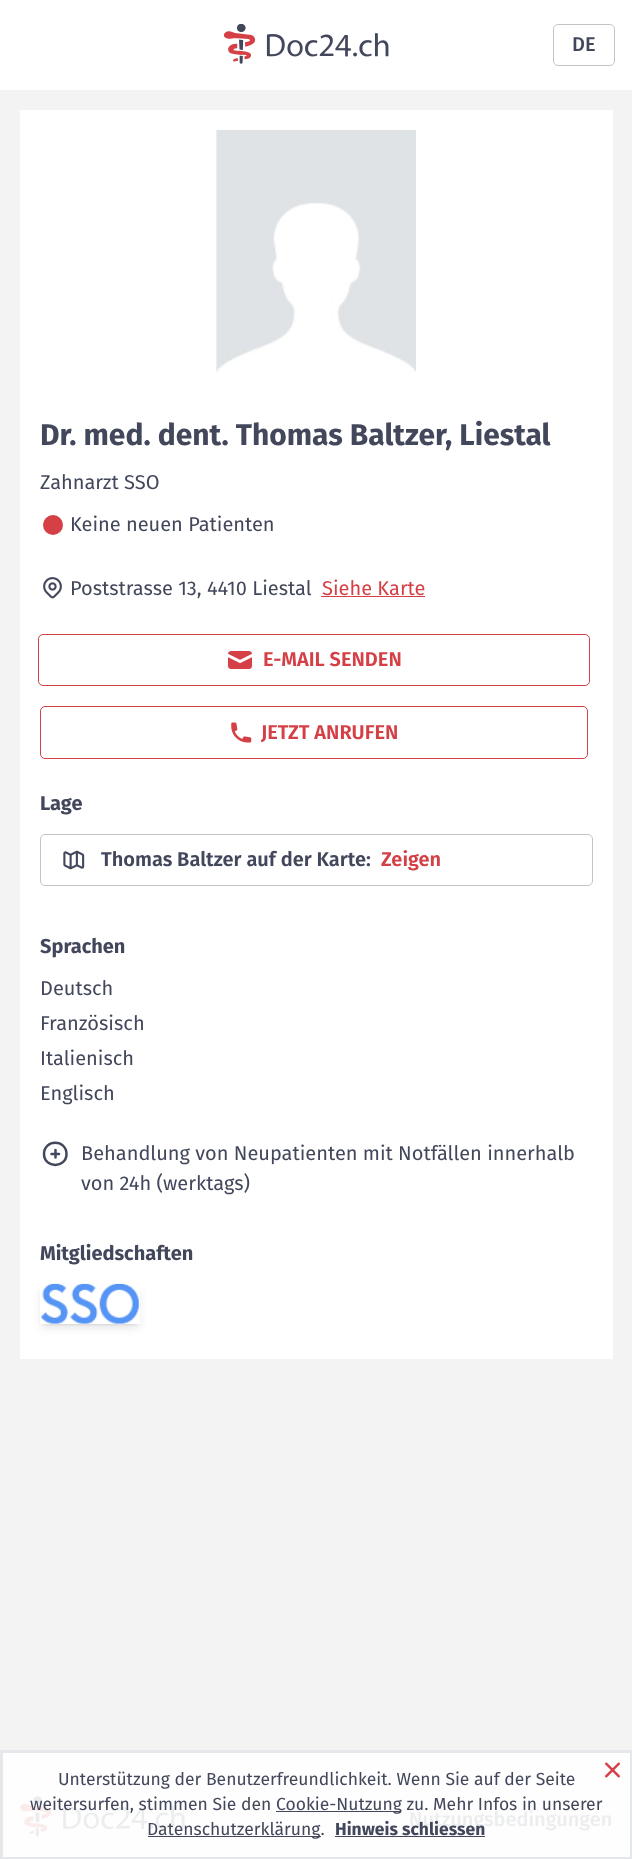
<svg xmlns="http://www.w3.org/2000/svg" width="632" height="1859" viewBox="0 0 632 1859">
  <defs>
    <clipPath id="clip1"><path d="M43 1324h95v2H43z"/></clipPath>
    <clipPath id="clip2"><path d="M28 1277H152V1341H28ZM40 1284H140V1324H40Z" clip-rule="evenodd"/></clipPath>
  </defs>
  <rect width="100%" height="100%" fill="#f3f3f3"/>
  <path d="M3 1753h627v104H3z" fill="#fefefe"/>
  <path d="M0 0h632v90H0z" fill="#fff"/>
  <image x="224" y="24" width="165" height="40" href="img/1.png"/>
  <rect x="553.5" y="24.5" width="61" height="41" rx="4.5" fill="none" stroke="#c4c4c4"/>
  <path d="M20 110h593v1249H20z" fill="#fff"/>
  <image x="216" y="130" width="200" height="242" href="img/2.png"/>
  <circle cx="53" cy="525" r="10" fill="#d44045"/>
  <image x="43" y="577" width="19" height="22" href="img/3.png"/>
  <path d="M321 596h104v1H321z" fill="#d44045"/>
  <rect x="38.5" y="634.5" width="551" height="51" rx="4.5" fill="none" stroke="#d44045"/>
  <image x="228" y="651" width="24" height="18" href="img/4.png"/>
  <rect x="40.5" y="706.5" width="547" height="52" rx="4.5" fill="none" stroke="#d44045"/>
  <image x="231" y="722" width="21" height="21" href="img/5.png"/>
  <rect x="40.5" y="834.5" width="552" height="51" rx="4.5" fill="none" stroke="#c4c4c4"/>
  <image x="63" y="850" width="22" height="20" href="img/6.png"/>
  <path d="M55.5 1150V1154M55.5 1154V1157.5M55.5 1154H59M55.5 1154H51.5M66.5 1154C66.5 1168.5 44 1168.5 44 1154C44 1139 66.5 1139 66.5 1154Z" fill="none" stroke="#42475b" stroke-width="2.5" stroke-linecap="round" stroke-linejoin="round"/>
  <g clip-path="url(#clip1)">
    <path d="M43 1289h95v35H43z" fill="#0000001a" filter="blur(2.5px)"/>
  </g>
  <g clip-path="url(#clip2)">
    <path d="M41 1290h98v38H41z" fill="#0000001a" filter="blur(4px)"/>
  </g>
  <image x="41" y="1283" width="98" height="41" href="img/7.png"/>
  <image x="20" y="1796" width="165" height="40" href="img/8.png"/>
  <path d="M1.5 1751.5h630v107H1.5z" fill="none" stroke="#e5e7eb" stroke-width="3"/>
  <path d="M276 1811h125v1H276z" fill="#42475b"/>
  <path d="M148 1836h173v1H148z" fill="#42475b"/>
  <path d="M335 1836h150v1H335z" fill="#42475b"/>
  <image x="605" y="1762" width="15" height="16" href="img/9.png"/>
  <text x="572" y="51" font-family="Fira Sans" font-size="20" font-weight="500" fill="#42475b">DE</text>
  <g font-family="Fira Sans" font-size="30" font-weight="bold" fill="#42475b">
    <text x="40" y="445">Dr. med. dent. Thomas Baltzer</text>
    <text x="445" y="445">, Liestal</text>
  </g>
  <g font-family="Fira Sans" font-size="20" fill="#42475b">
    <text x="40" y="489">Zahnarzt SSO</text>
    <text x="70" y="531">Keine neuen Patienten</text>
    <text x="70" y="595">Poststrasse 13, 4410 Liestal</text>
  </g>
  <text x="322" y="595" font-family="Fira Sans" font-size="20" fill="#d44045">Siehe Karte</text>
  <g font-family="Fira Sans" font-size="20" font-weight="600" fill="#d44045">
    <text x="263" y="666">E-MAIL SENDEN</text>
    <text x="261" y="739">JETZT ANRUFEN</text>
  </g>
  <text x="40" y="810" font-family="Fira Sans" font-size="20" font-weight="bold" fill="#42475b">Lage</text>
  <text x="101" y="866" font-family="Fira Sans" font-size="20" font-weight="600" fill="#42475b">Thomas Baltzer auf der Karte:</text>
  <text x="381" y="866" font-family="Fira Sans" font-size="20" font-weight="600" fill="#d44045">Zeigen</text>
  <text x="40" y="953" font-family="Fira Sans" font-size="20" font-weight="bold" fill="#42475b">Sprachen</text>
  <g font-family="Fira Sans" font-size="20" fill="#42475b">
    <text x="40" y="995">Deutsch</text>
    <text x="40" y="1030">Französisch</text>
    <text x="40" y="1065">Italienisch</text>
    <text x="40" y="1100">Englisch</text>
    <text x="81" y="1160">Behandlung von Neupatienten mit Notfällen innerhalb</text>
    <text x="81" y="1190">von 24h (werktags)</text>
  </g>
  <text x="40" y="1260" font-family="Fira Sans" font-size="20" font-weight="bold" fill="#42475b">Mitgliedschaften</text>
  <text x="409" y="1826" font-family="Fira Sans" font-size="20" font-weight="500" fill="#ecedef">Nutzungsbedingungen</text>
  <g font-family="Fira Sans" font-size="17.5" fill="#42475b">
    <text x="58" y="1785">Unterstützung der Benutzerfreundlichkeit. Wenn Sie auf der Seite</text>
    <text x="30" y="1810">weitersurfen, stimmen Sie den</text>
    <text x="276" y="1810">Cookie-Nutzung zu. Mehr Infos in unserer</text>
    <text x="147" y="1835">Datenschutzerklärung.</text>
  </g>
  <text x="335" y="1835" font-family="Fira Sans" font-size="17.5" font-weight="bold" fill="#42475b">Hinweis schliessen</text>
</svg>
